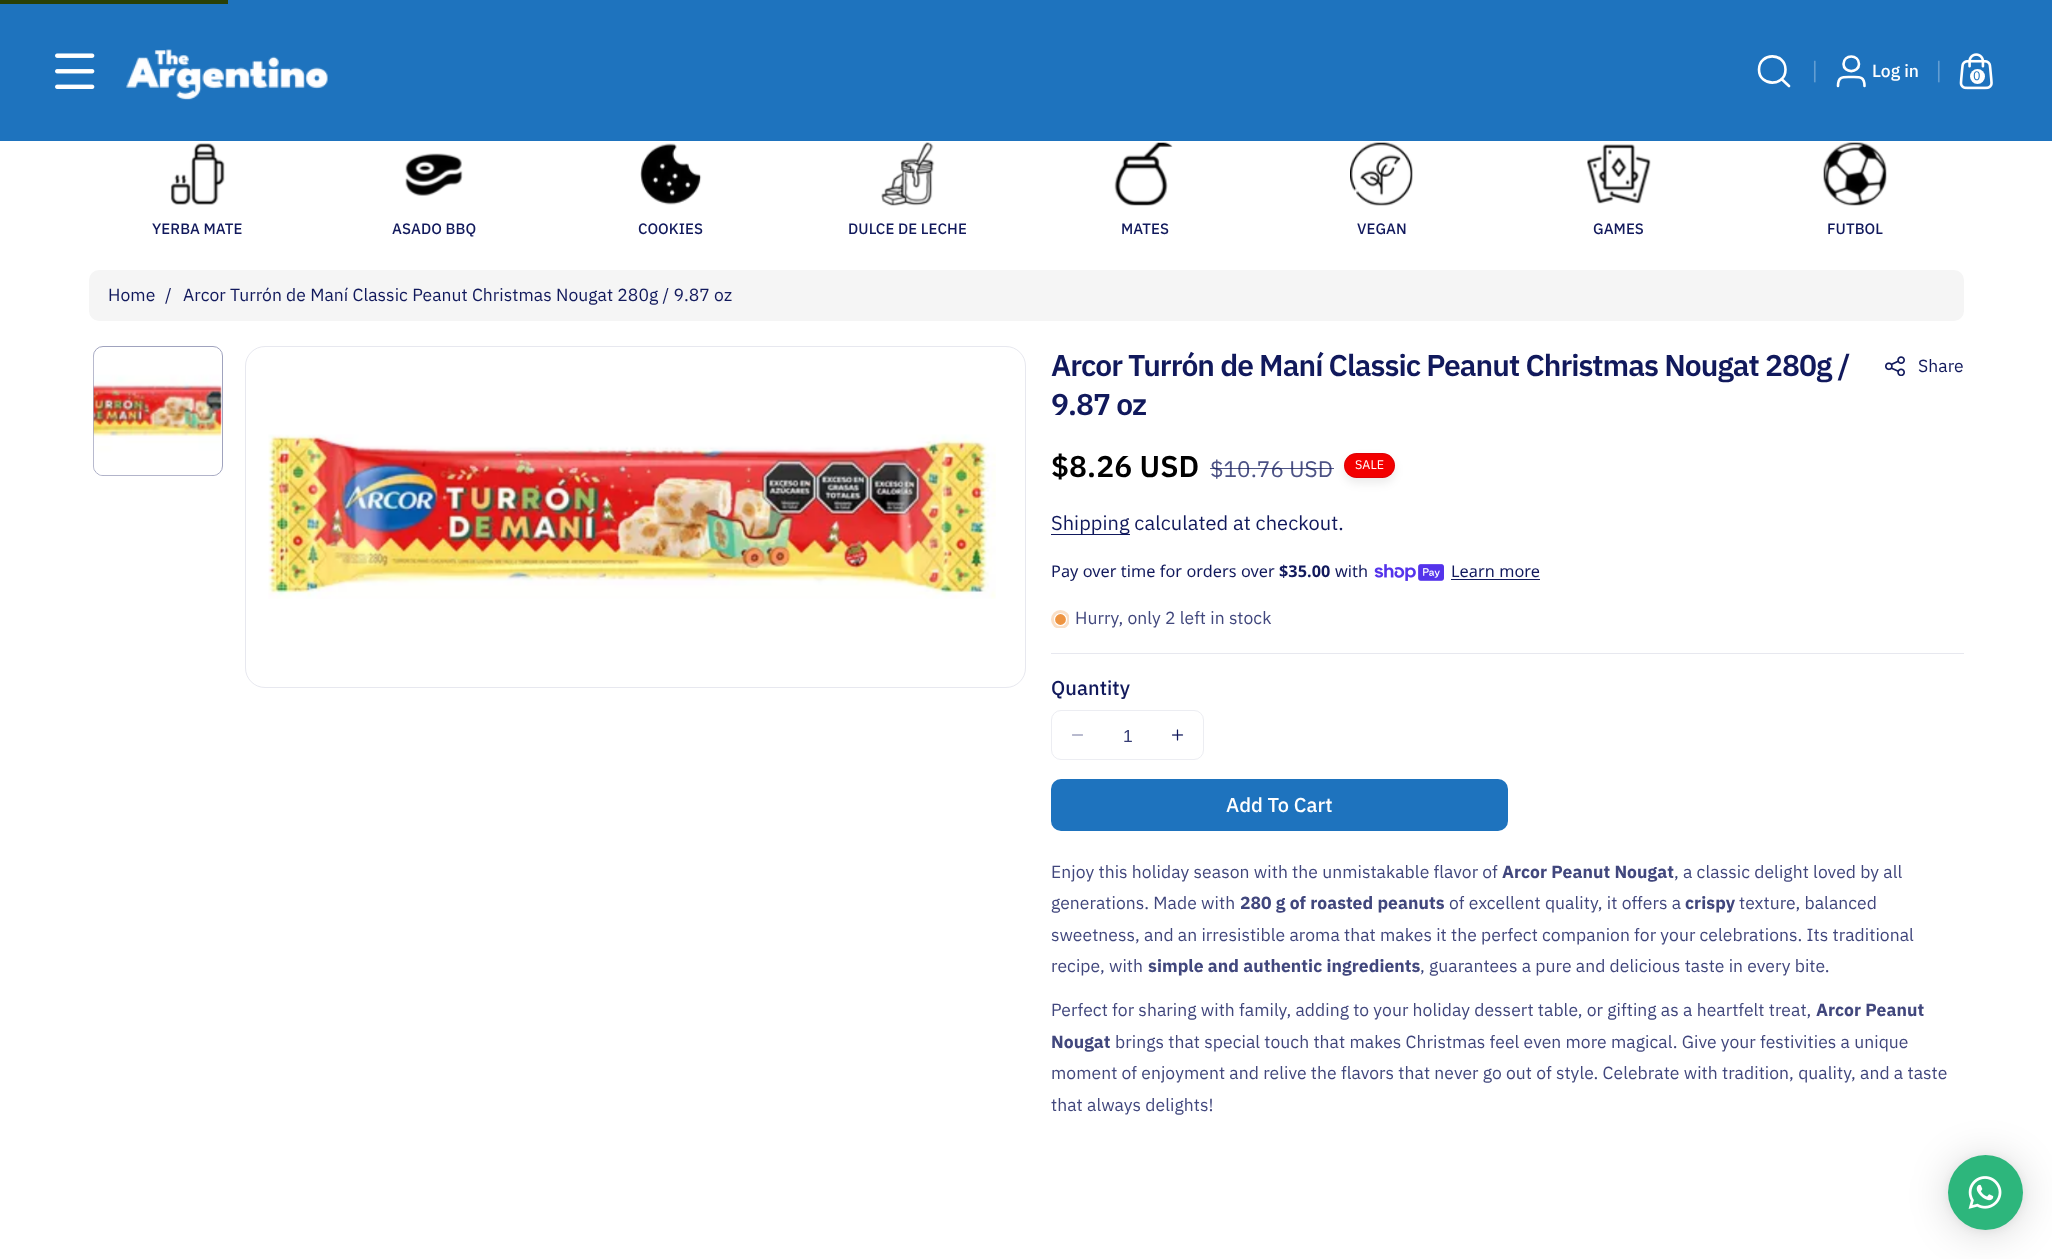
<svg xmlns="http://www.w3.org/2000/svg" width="2052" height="1259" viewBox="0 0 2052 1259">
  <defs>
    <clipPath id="clip1"><path d="M1051 610h18v18H1051z"/></clipPath>
  </defs>
  <rect width="100%" height="100%" fill="#fff"/>
  <path d="M0 0h2052v141H0z" fill="#1e73be"/>
  <path d="M0 0h228v4H0z" fill="#294007"/>
  <image x="55" y="53" width="40" height="36" href="img/1.png"/>
  <image x="126" y="49" width="202" height="51" href="img/2.png"/>
  <path d="M1789 86L1781.5 79M1785.5 69.5C1785.5 87 1759 87 1759 69.5C1759 52 1785.5 52 1785.5 69.5Z" fill="none" stroke="#fff" stroke-width="2.6" stroke-linecap="round" stroke-linejoin="round"/>
  <path d="M1864.5 86C1864.5 76 1859.5 77 1851 77C1843 77 1838 76 1838 86M1859 64C1859 73.5 1843.5 73.5 1843.5 64C1843.5 54 1859 54 1859 64Z" fill="none" stroke="#fff" stroke-width="2.6" stroke-linecap="round" stroke-linejoin="round"/>
  <image x="1959" y="53" width="34" height="37" href="img/3.png"/>
  <circle cx="1977.5" cy="76.5" r="7.5" fill="#fff"/>
  <image x="170" y="143" width="55" height="62" href="img/4.png"/>
  <image x="405" y="153" width="58" height="43" href="img/5.png"/>
  <image x="640" y="143" width="62" height="62" href="img/6.png"/>
  <image x="881" y="142" width="54" height="64" href="img/7.png"/>
  <image x="1114" y="142" width="59" height="64" href="img/8.png"/>
  <image x="1350" y="142" width="63" height="64" href="img/9.png"/>
  <image x="1587" y="144" width="64" height="60" href="img/10.png"/>
  <image x="1823" y="142" width="64" height="64" href="img/11.png"/>
  <rect x="89" y="270" width="1875" height="51" rx="10" fill="#f5f5f5"/>
  <rect x="93.5" y="346.5" width="129" height="129" rx="9.5" fill="none" stroke="#a0a3be"/>
  <image x="93" y="352" width="129" height="124" href="img/12.png"/>
  <rect x="245.5" y="346.5" width="780" height="341" rx="19.5" fill="none" stroke="#e7e8ef"/>
  <image x="268" y="434" width="728" height="165" href="img/13.png"/>
  <image x="1885" y="356" width="20" height="20" href="img/14.png"/>
  <path d="M1051 534h79v1H1051z" fill="#11195c"/>
  <image x="1374" y="564" width="70" height="17" href="img/15.png"/>
  <path d="M1451 579h89v1H1451z" fill="#11195c"/>
  <g clip-path="url(#clip1)">
    <circle cx="1060.5" cy="619.5" r="9.5" fill="#fadfc6"/>
  </g>
  <circle cx="1060.5" cy="619.5" r="6" fill="#ee9441" stroke="#fff" stroke-width="1.2"/>
  <path d="M1051 653h913v1H1051z" fill="#e7e8ef"/>
  <rect x="1051.5" y="710.5" width="152" height="49" rx="9.5" fill="none" stroke="#ecedf2"/>
  <image x="1072" y="734" width="11" height="2" href="img/16.png"/>
  <image x="1172" y="729" width="12" height="12" href="img/17.png"/>
  <rect x="1051" y="779" width="457" height="52" rx="10" fill="#1e73be"/>
  <rect x="1948" y="1158" width="75" height="75" rx="37.5" fill="#00000029" filter="blur(20px)"/>
  <rect x="1948" y="1156" width="75" height="75" rx="37.5" fill="#0000000f" filter="blur(4px)"/>
  <circle cx="1985.5" cy="1192.5" r="37.5" fill="#2db67c"/>
  <image x="1968" y="1176" width="34" height="33" href="img/18.png"/>
  <text x="1811" y="79" font-family="IBM Plex Sans" font-size="24" letter-spacing="0.06" fill="#629dd2">|</text>
  <text x="1872" y="77" font-family="IBM Plex Sans" font-size="17.5" font-weight="500" fill="#fff">Log in</text>
  <text x="1935" y="79" font-family="IBM Plex Sans" font-size="24" letter-spacing="0.06" fill="#629dd2">|</text>
  <text x="1973" y="80" font-family="IBM Plex Sans" font-size="12.5" letter-spacing="0.06" fill="#1e73be">0</text>
  <g font-family="IBM Plex Sans" font-size="15" font-weight="500" letter-spacing="0.06" fill="#11195c">
    <text x="152" y="234">YERBA MATE</text>
    <text x="392" y="234">ASADO BBQ</text>
    <text x="638" y="234">COOKIES</text>
    <text x="848" y="234">DULCE DE LECHE</text>
    <text x="1121" y="234">MATES</text>
    <text x="1357" y="234">VEGAN</text>
    <text x="1593" y="234">GAMES</text>
    <text x="1827" y="234">FUTBOL</text>
  </g>
  <g font-family="IBM Plex Sans" font-size="17.5" letter-spacing="0.06" fill="#11195c">
    <text x="108" y="301">Home</text>
    <text x="165" y="301">/</text>
    <text x="183" y="301">Arcor Turrón de Maní Classic Peanut Christmas Nougat 280g / 9.87 oz</text>
  </g>
  <g font-family="IBM Plex Sans" font-size="30" font-weight="600" letter-spacing="-0.95" fill="#11195c">
    <text x="1051" y="376">Arcor Turrón de Maní Classic Peanut Christmas Nougat 280g /</text>
    <text x="1051" y="415">9.87 oz</text>
  </g>
  <text x="1918" y="372" font-family="IBM Plex Sans" font-size="17.5" letter-spacing="0.06" fill="#11195c">Share</text>
  <text x="1051" y="477" font-family="IBM Plex Sans" font-size="30" font-weight="600" letter-spacing="0.06" fill="#000">$8.26 USD</text>
  <text x="1210" y="477" font-family="IBM Plex Sans" font-size="22.5" letter-spacing="0.06" fill="#4d5385">$10.76 USD</text>
  <path d="M1210 468h124v1H1210z" fill="#11195cbf"/>
  <rect x="1344" y="458" width="51" height="25" rx="12.5" fill="#00000014" filter="blur(5px)"/>
  <rect x="1344" y="453" width="51" height="25" rx="12.5" fill="#f30000"/>
  <rect x="1344.5" y="453.5" width="50" height="24" rx="12" fill="none" stroke="#11195c1a"/>
  <text x="1355" y="469" font-family="IBM Plex Sans" font-size="12.5" letter-spacing="0.06" fill="#fff">SALE</text>
  <text x="1051" y="530" font-family="IBM Plex Sans" font-size="20" letter-spacing="0.06" fill="#11195c">Shipping calculated at checkout.</text>
  <text x="1051" y="577" font-family="Noto Sans" font-size="16.25" letter-spacing="0.06" fill="#11195c">Pay over time for orders over</text>
  <text x="1279" y="577" font-family="Noto Sans" font-size="16.25" font-weight="bold" letter-spacing="0.06" fill="#11195c">$35.00</text>
  <g font-family="Noto Sans" font-size="16.25" letter-spacing="0.06" fill="#11195c">
    <text x="1335" y="577">with</text>
    <text x="1451" y="577">Learn more</text>
  </g>
  <text x="1075" y="624" font-family="IBM Plex Sans" font-size="17.5" letter-spacing="0.06" fill="#41477d">Hurry, only 2 left in stock</text>
  <text x="1051" y="695" font-family="IBM Plex Sans" font-size="20" font-weight="500" letter-spacing="0.06" fill="#11195c">Quantity</text>
  <text x="1123" y="742" font-family="Liberation Sans" font-size="17.5" fill="#353c74">1</text>
  <text x="1226" y="812" font-family="IBM Plex Sans" font-size="20" font-weight="500" fill="#fff">Add To Cart</text>
  <text x="1051" y="878" font-family="IBM Plex Sans" font-size="17.5" letter-spacing="0.06" fill="#41477d">Enjoy this holiday season with the unmistakable flavor of</text>
  <text x="1502" y="878" font-family="IBM Plex Sans" font-size="17.5" font-weight="bold" letter-spacing="0.06" fill="#41477d">Arcor Peanut Nougat</text>
  <g font-family="IBM Plex Sans" font-size="17.5" letter-spacing="0.06" fill="#41477d">
    <text x="1674" y="878">, a classic delight loved by all</text>
    <text x="1051" y="909">generations. Made with</text>
  </g>
  <text x="1240" y="909" font-family="IBM Plex Sans" font-size="17.5" font-weight="bold" letter-spacing="0.06" fill="#41477d">280 g of roasted peanuts</text>
  <text x="1449" y="909" font-family="IBM Plex Sans" font-size="17.5" letter-spacing="0.06" fill="#41477d">of excellent quality, it offers a</text>
  <text x="1685" y="909" font-family="IBM Plex Sans" font-size="17.5" font-weight="bold" letter-spacing="0.06" fill="#41477d">crispy</text>
  <g font-family="IBM Plex Sans" font-size="17.5" letter-spacing="0.06" fill="#41477d">
    <text x="1739" y="909">texture, balanced</text>
    <text x="1051" y="941">sweetness, and an irresistible aroma that makes it the perfect companion for your celebrations. Its traditional</text>
    <text x="1051" y="972">recipe, with</text>
  </g>
  <text x="1148" y="972" font-family="IBM Plex Sans" font-size="17.5" font-weight="bold" letter-spacing="0.06" fill="#41477d">simple and authentic ingredients</text>
  <g font-family="IBM Plex Sans" font-size="17.5" letter-spacing="0.06" fill="#41477d">
    <text x="1420" y="972">, guarantees a pure and delicious taste in every bite.</text>
    <text x="1051" y="1016">Perfect for sharing with family, adding to your holiday dessert table, or gifting as a heartfelt treat,</text>
  </g>
  <g font-family="IBM Plex Sans" font-size="17.5" font-weight="bold" letter-spacing="0.06" fill="#41477d">
    <text x="1816" y="1016">Arcor Peanut</text>
    <text x="1051" y="1048">Nougat</text>
  </g>
  <g font-family="IBM Plex Sans" font-size="17.5" letter-spacing="0.06" fill="#41477d">
    <text x="1115" y="1048">brings that special touch that makes Christmas feel even more magical. Give your festivities a unique</text>
    <text x="1051" y="1079">moment of enjoyment and relive the flavors that never go out of style. Celebrate with tradition, quality, and a taste</text>
    <text x="1051" y="1111">that always delights!</text>
  </g>
</svg>
